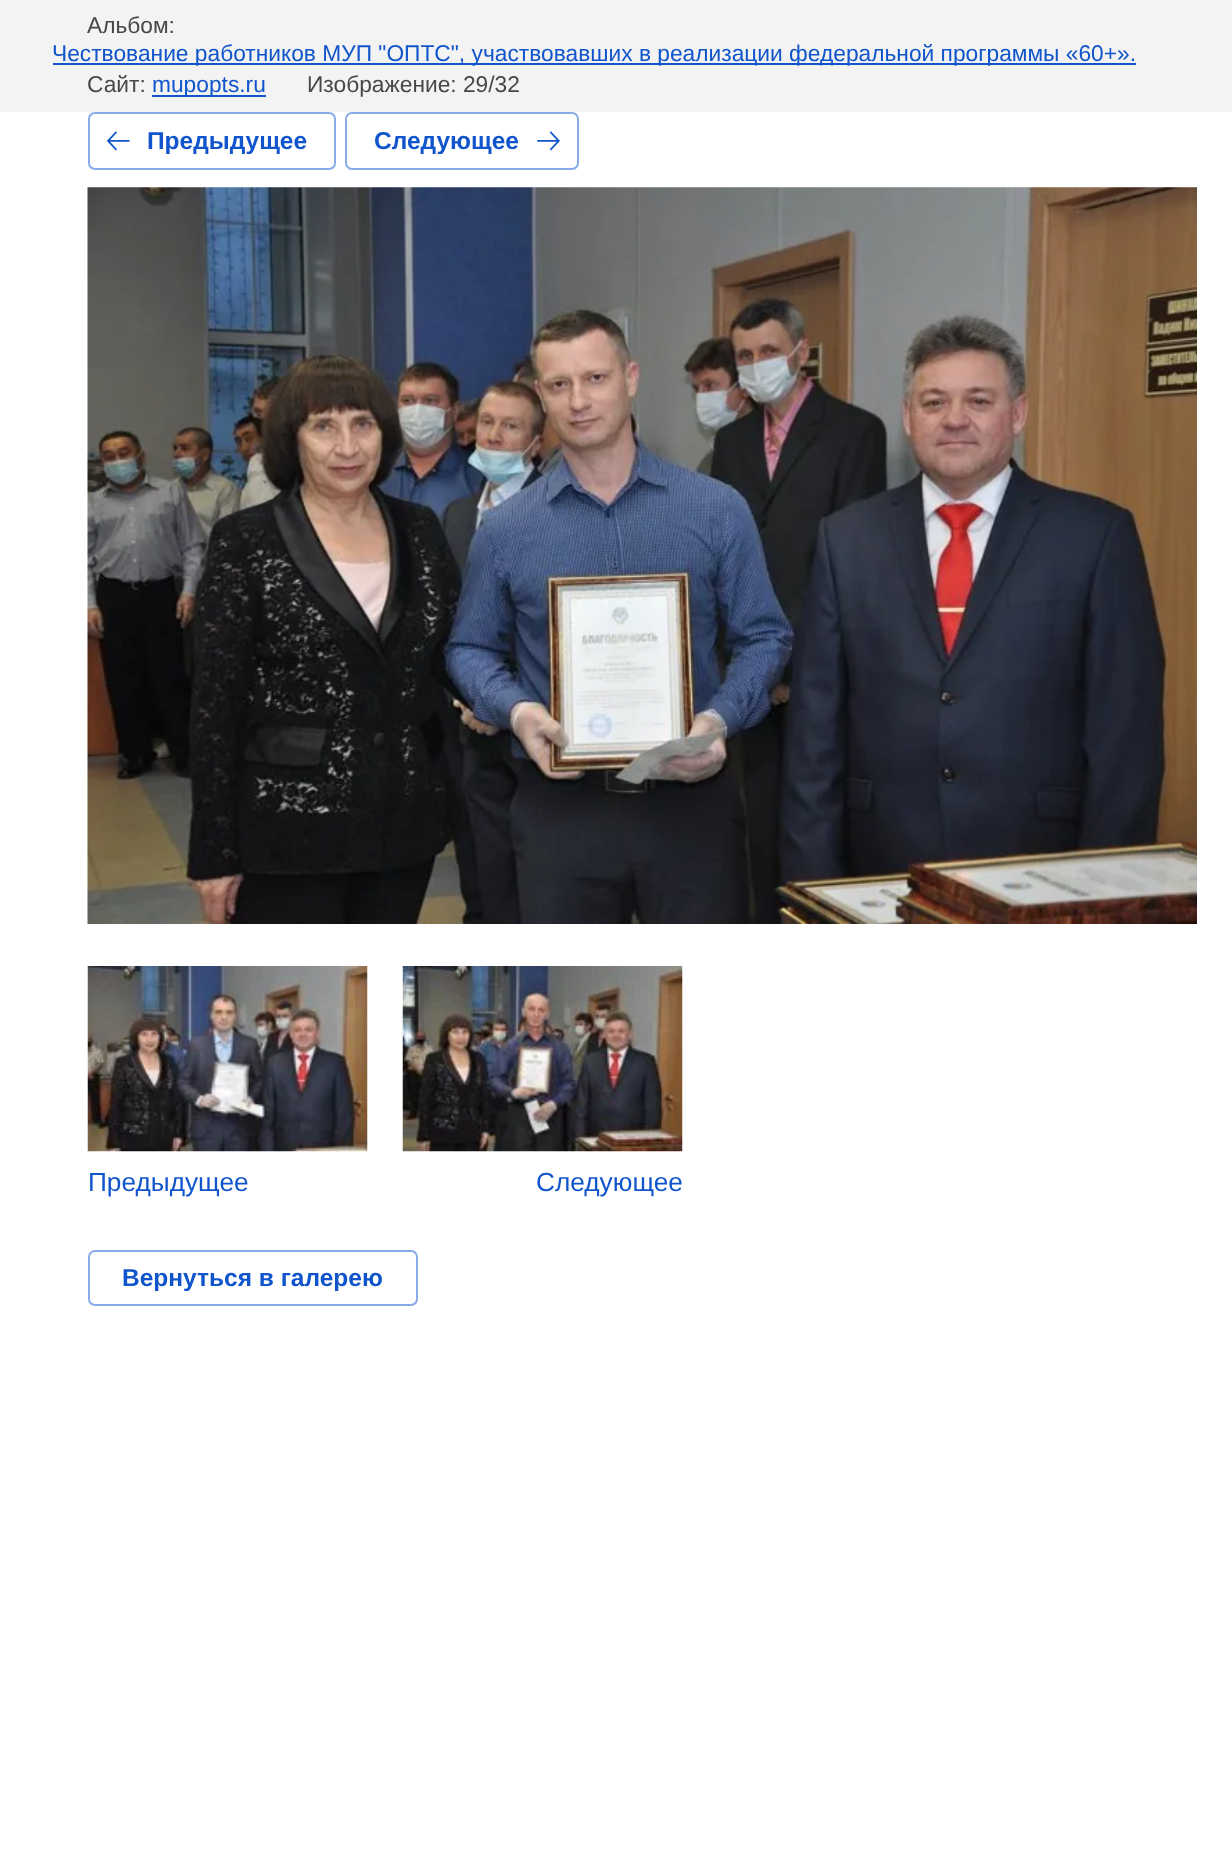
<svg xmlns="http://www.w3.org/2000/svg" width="1232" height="1864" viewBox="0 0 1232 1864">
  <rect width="100%" height="100%" fill="#fff"/>
  <path d="M0 0h1232v112H0z" fill="#f3f3f3"/>
  <path d="M53 63h1083v2H53z" fill="#15c"/>
  <path d="M152 95h114v2H152z" fill="#15c"/>
  <rect x="89" y="113" width="246" height="56" rx="6" fill="none" stroke="#88aae6" stroke-width="2"/>
  <image x="107" y="131" width="23" height="20" href="img/1.png"/>
  <rect x="346" y="113" width="232" height="56" rx="6" fill="none" stroke="#88aae6" stroke-width="2"/>
  <image x="537" y="131" width="23" height="20" href="img/2.png"/>
  <image x="87" y="187" width="1110" height="737" href="img/3.png"/>
  <image x="87" y="966" width="281" height="186" href="img/4.png"/>
  <image x="402" y="966" width="281" height="186" href="img/5.png"/>
  <rect x="89" y="1251" width="328" height="54" rx="6" fill="none" stroke="#88aae6" stroke-width="2"/>
  <text x="87" y="33" font-family="Liberation Sans" font-size="22.75" fill="#484848">Альбом:</text>
  <text x="52" y="61" font-family="Liberation Sans" font-size="22.75" fill="#15c">Чествование работников МУП "ОПТС", участвовавших в реализации федеральной программы «60+».</text>
  <text x="87" y="92" font-family="Liberation Sans" font-size="22.75" fill="#484848">Сайт:</text>
  <text x="152" y="92" font-family="Liberation Sans" font-size="22.75" fill="#15c">mupopts.ru</text>
  <text x="307" y="92" font-family="Liberation Sans" font-size="22.75" fill="#484848">Изображение: 29/32</text>
  <g font-family="Liberation Sans" font-size="24.5" font-weight="bold" fill="#15c">
    <text x="147" y="149">Предыдущее</text>
    <text x="374" y="149">Следующее</text>
  </g>
  <g font-family="Liberation Sans" font-size="26.25" fill="#15c">
    <text x="88" y="1191">Предыдущее</text>
    <text x="536" y="1191">Следующее</text>
  </g>
  <text x="122" y="1286" font-family="Liberation Sans" font-size="24.5" font-weight="bold" fill="#15c">Вернуться в галерею</text>
</svg>
